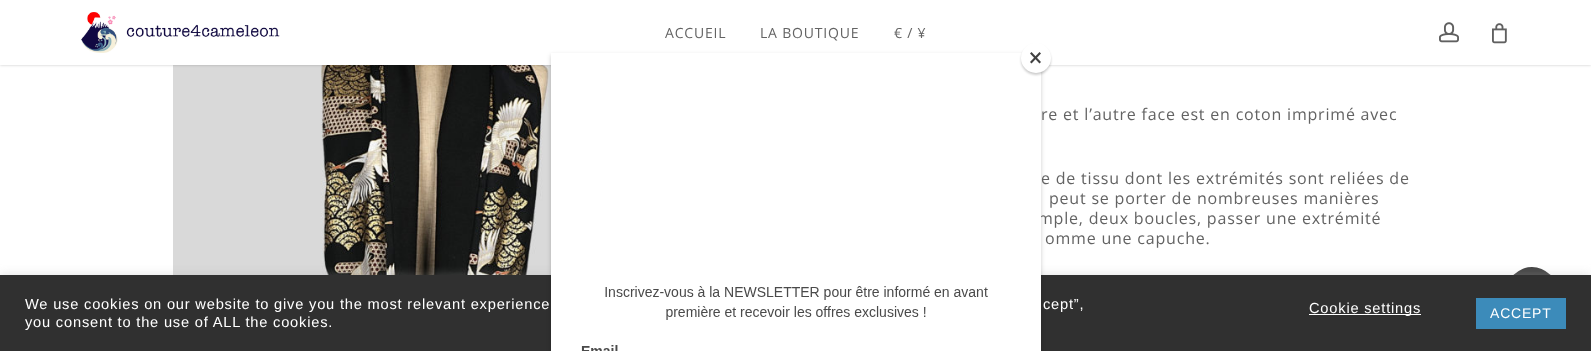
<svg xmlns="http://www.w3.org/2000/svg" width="1591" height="351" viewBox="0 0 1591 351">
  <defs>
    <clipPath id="clip1"><path d="M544 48H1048V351H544ZM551 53H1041V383H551Z" clip-rule="evenodd"/></clipPath>
  </defs>
  <rect width="100%" height="100%" fill="#fff"/>
  <image x="173" y="65" width="378" height="210" href="img/4.png"/>
  <path d="M0 -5h1591v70H0z" fill="#00000038" filter="blur(1.5px)"/>
  <path d="M0 0h1591v65H0z" fill="#fff"/>
  <image x="81" y="12" width="199" height="41" href="img/1.png"/>
  <image x="1439" y="22" width="20" height="21" href="img/2.png"/>
  <image x="1492" y="23" width="15" height="21" href="img/3.png"/>
  <circle cx="1532" cy="292" r="25" fill="#444"/>
  <path d="M0 274h1591v76H0z" fill="#acabab4d" filter="blur(5px)"/>
  <path d="M0 275h1591v76H0z" fill="#303030"/>
  <g clip-path="url(#clip1)">
    <path d="M551 55h490v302H551z" fill="#00000033" filter="blur(2px)"/>
  </g>
  <path d="M1309 314h112v1H1309z" fill="#fff"/>
  <path d="M1476 298h90v31H1476z" fill="#3c8bba"/>
  <g font-family="Open Sans" font-size="14" letter-spacing="0.8" fill="#636363">
    <text x="665" y="38">ACCUEIL</text>
    <text x="760" y="38">LA BOUTIQUE</text>
    <text x="894" y="38">€ / ¥</text>
  </g>
  <g font-family="Open Sans" font-size="16" letter-spacing="0.8" fill="#636363">
    <text x="1041" y="120">re et l’autre face est en coton imprimé avec</text>
    <text x="1041" y="184">e de tissu dont les extrémités sont reliées de</text>
    <text x="1049" y="204">peut se porter de nombreuses manières</text>
    <text x="1038" y="224">mple, deux boucles, passer une extrémité</text>
    <text x="1045" y="244">omme une capuche.</text>
  </g>
  <image x="551" y="65" width="490" height="286" href="img/5.png"/>
  <rect x="1021" y="45" width="30" height="30" rx="15" fill="#00000033" filter="blur(1px)"/>
  <circle cx="1036" cy="58" r="15" fill="#fff"/>
  <path d="M1039.5 52L1041 53.5L1031.5 63.5L1030 62Z" fill="#414141"/>
  <path d="M1030 53.5L1031.5 52L1041 62L1039.5 63.5Z" fill="#414141"/>
  <g font-family="Liberation Sans" font-size="14.65" letter-spacing="0.8" fill="#fff">
    <text x="25" y="309">We use cookies on our website to give you the most relevant experience</text>
    <text x="1043" y="309">cept”,</text>
    <text x="25" y="327">you consent to the use of ALL the cookies.</text>
    <text x="1309" y="313">Cookie settings</text>
  </g>
  <text x="1490" y="318" font-family="Liberation Sans" font-size="14" letter-spacing="0.8" fill="#fff">ACCEPT</text>
</svg>
